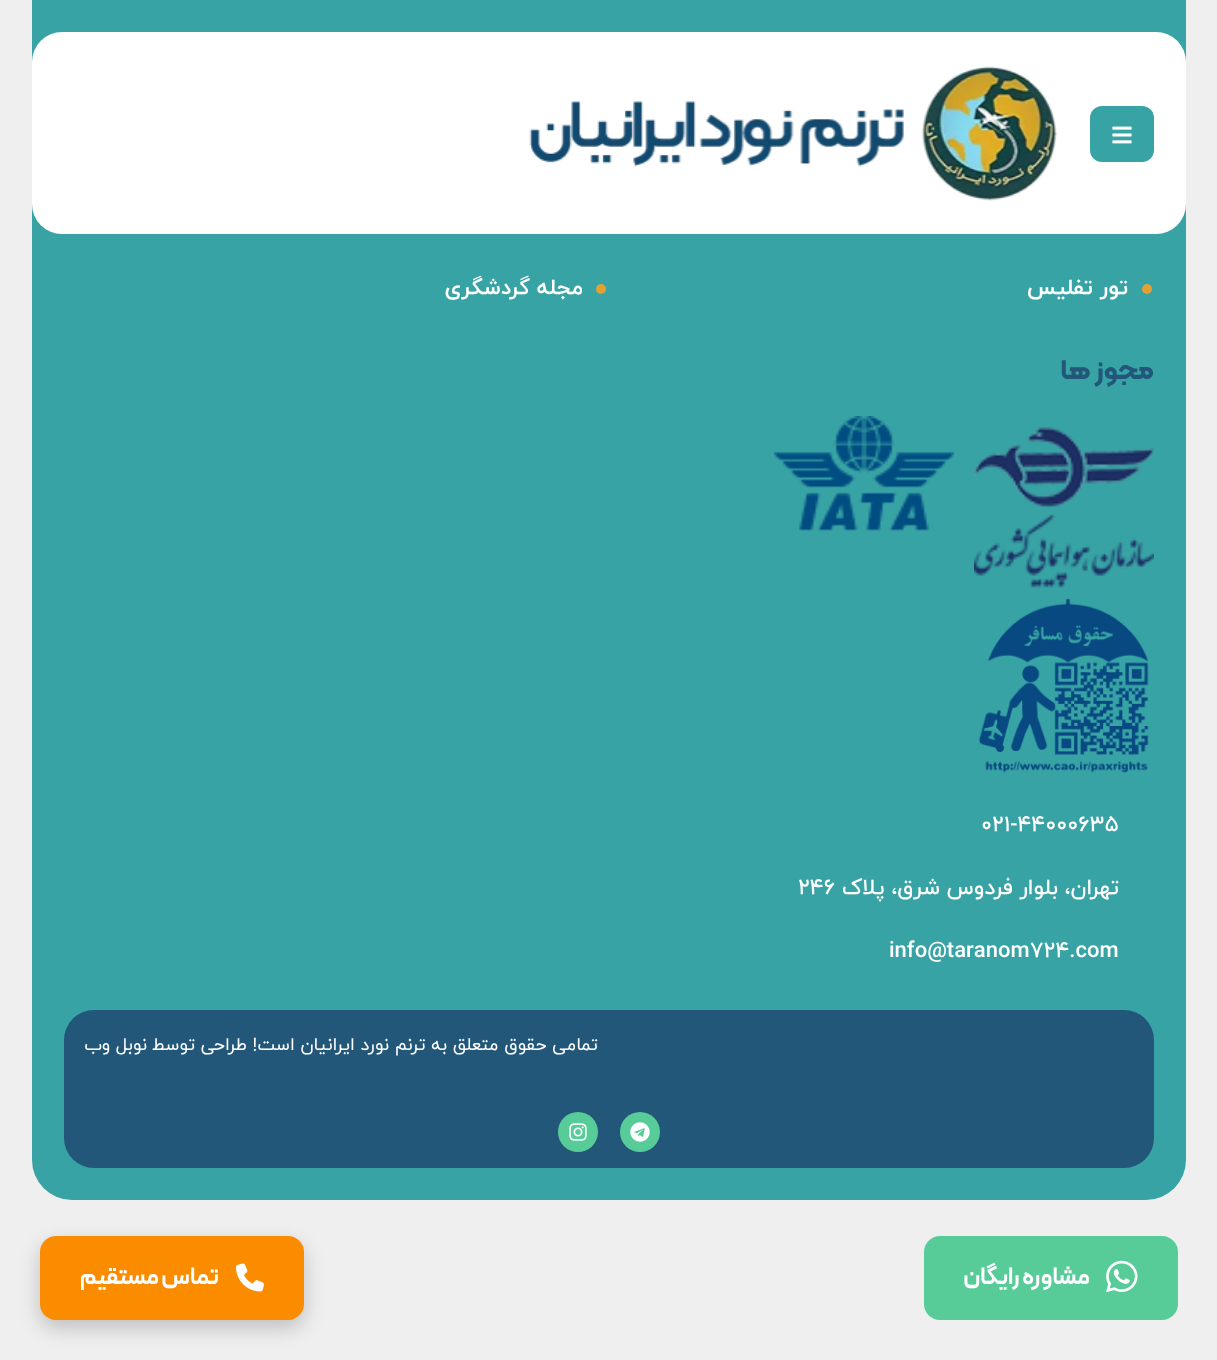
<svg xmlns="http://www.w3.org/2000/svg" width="1217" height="1360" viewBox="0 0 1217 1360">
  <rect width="100%" height="100%" fill="#efefef"/>
  <rect x="32" y="-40" width="1154" height="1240" rx="40" fill="#38a3a5"/>
  <rect x="32" y="32" width="1154" height="202" rx="30" fill="#fff"/>
  <rect x="1090" y="106" width="64" height="56" rx="12" fill="#38a3a5"/>
  <image x="1112" y="126" width="20" height="18" href="img/1.png"/>
  <image x="529" y="66" width="529" height="135" href="img/2.png"/>
  <circle cx="1147" cy="289" r="5" fill="#e3a135"/>
  <circle cx="601" cy="289" r="5" fill="#e3a135"/>
  <image x="974" y="427" width="180" height="161" href="img/3.png"/>
  <image x="774" y="416" width="180" height="115" href="img/4.png"/>
  <image x="978" y="598" width="171" height="175" href="img/5.png"/>
  <rect x="64" y="1010" width="1090" height="158" rx="30" fill="#22577a"/>
  <circle cx="640" cy="1132" r="20" fill="#57cc99"/>
  <image x="630" y="1122" width="20" height="20" href="img/6.png"/>
  <circle cx="578" cy="1132" r="20" fill="#57cc99"/>
  <image x="569" y="1123" width="18" height="18" href="img/7.png"/>
  <rect x="924" y="1236" width="254" height="84" rx="16" fill="#57cc99"/>
  <image x="1106" y="1260" width="32" height="33" href="img/8.png"/>
  <rect x="40" y="1244" width="264" height="84" rx="16" fill="#00000033" filter="blur(10px)"/>
  <rect x="40" y="1236" width="264" height="84" rx="16" fill="#fb8c00"/>
  <image x="236" y="1263" width="28" height="29" href="img/9.png"/>
  <g font-family="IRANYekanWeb" font-size="22" font-weight="bold" direction="rtl" fill="#fff">
    <text x="1128" y="294">تور تفلیس</text>
    <text x="583" y="294">مجله گردشگری</text>
  </g>
  <text x="1154" y="379" font-family="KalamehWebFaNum" font-size="28" font-weight="bold" direction="rtl" fill="#22577a">مجوز ها</text>
  <text x="981" y="831" font-family="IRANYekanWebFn" font-size="22" font-weight="500" fill="#fff">021-44000635</text>
  <text x="1119" y="894" font-family="IRANYekanWebFn" font-size="22" font-weight="500" direction="rtl" fill="#fff">تهران، بلوار فردوس شرق، پلاک</text>
  <g font-family="IRANYekanWebFn" font-size="22" font-weight="500" fill="#fff">
    <text x="798" y="894">246</text>
    <text x="889" y="957">info@taranom724.com</text>
  </g>
  <g font-family="IRANYekanWebFn" font-size="18" direction="rtl" fill="#fff">
    <text x="598" y="1050">تمامی حقوق متعلق به ترنم نورد ایرانیان است! طراحی توسط</text>
    <text x="147" y="1050">نوبل وب</text>
  </g>
  <g font-family="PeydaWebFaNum" font-size="24" font-weight="bold" direction="rtl" fill="#fff">
    <text x="1090" y="1284">مشاوره رایگان</text>
    <text x="219" y="1284">تماس مستقیم</text>
  </g>
</svg>
